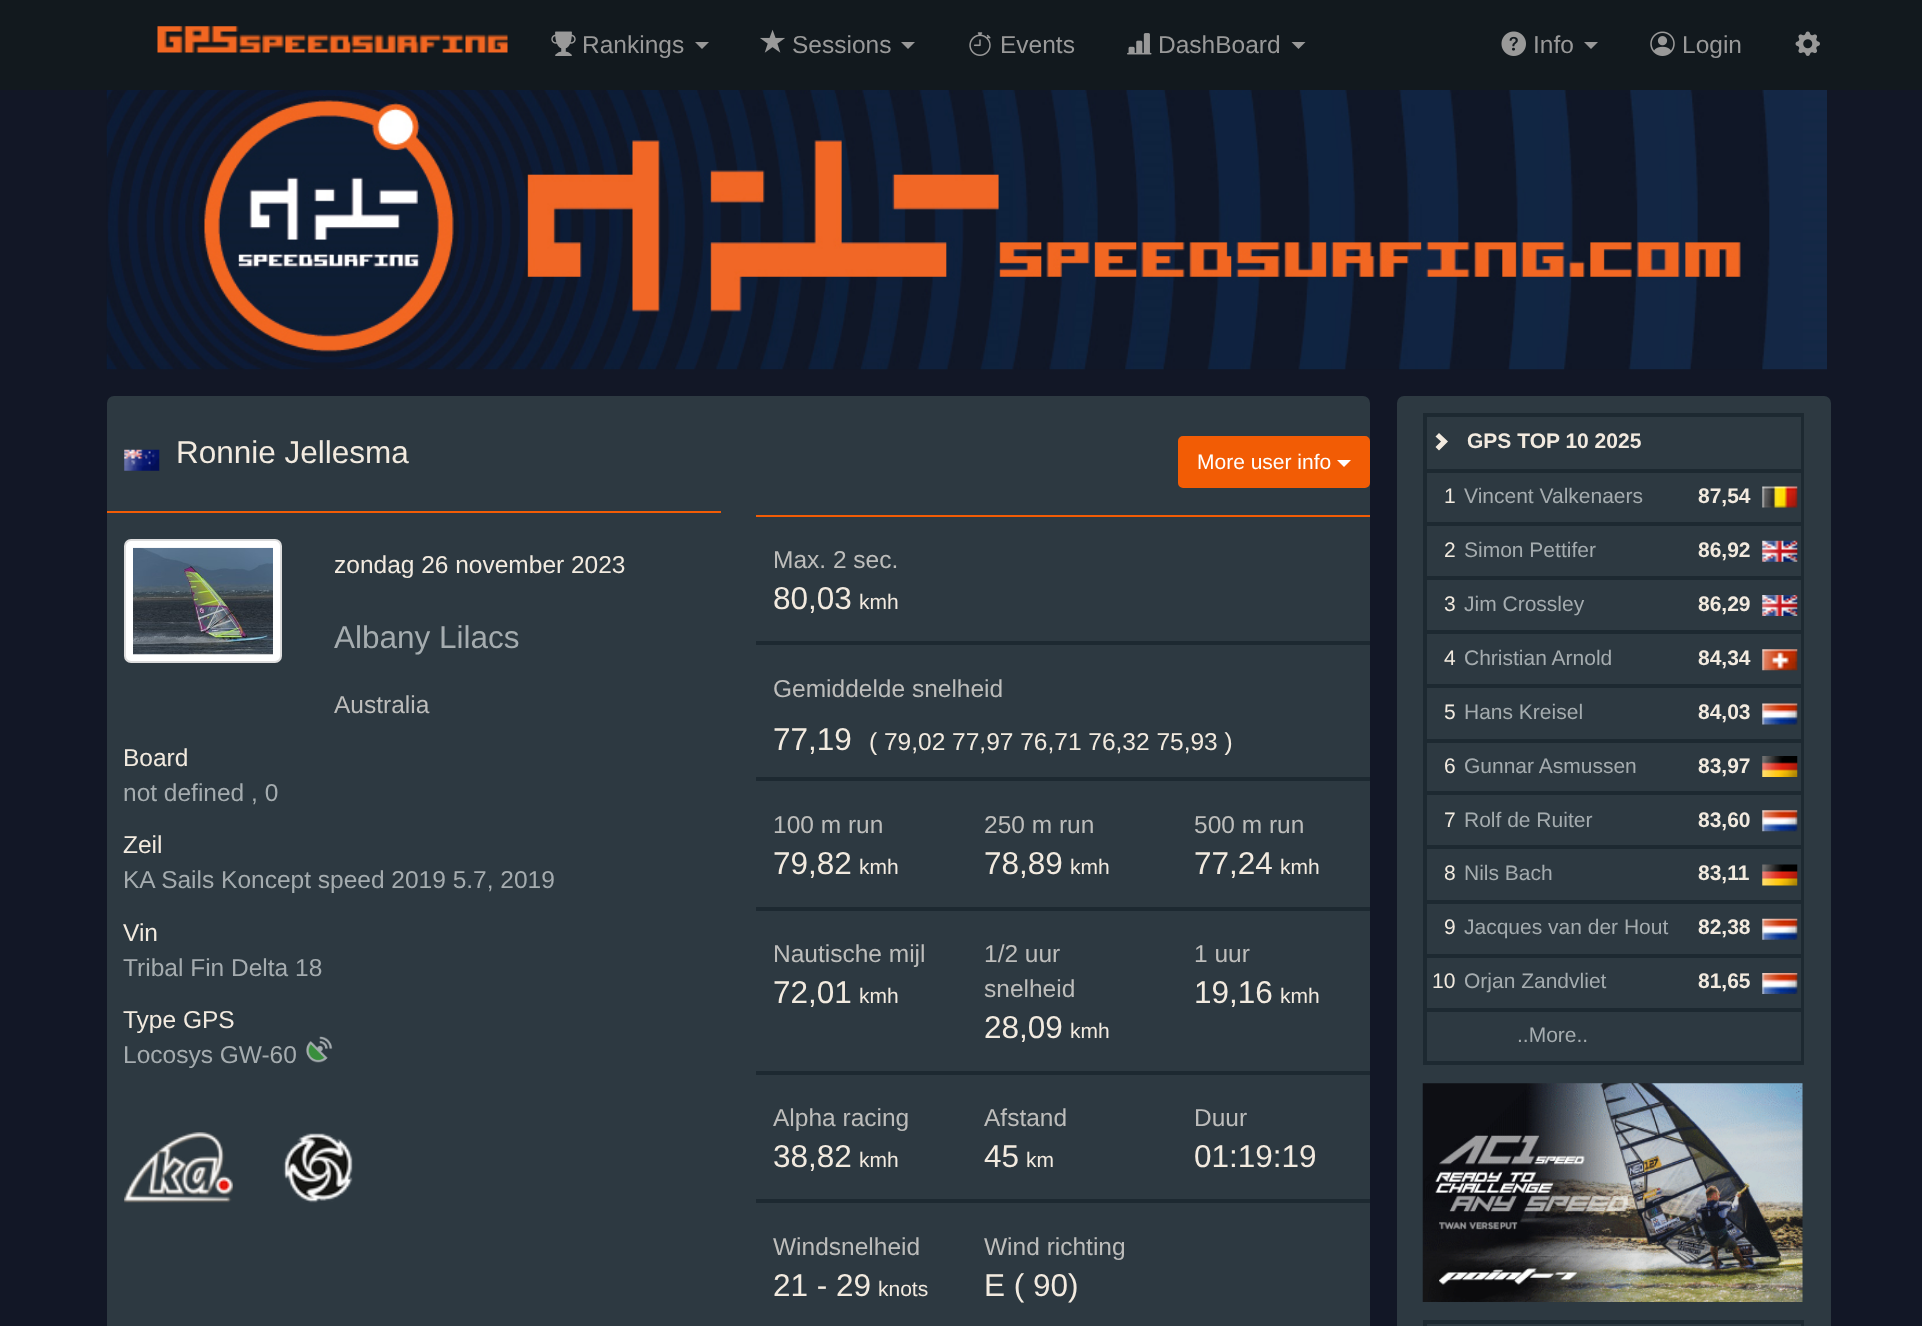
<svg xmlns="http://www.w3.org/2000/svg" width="1922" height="1326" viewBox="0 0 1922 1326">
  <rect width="100%" height="100%" fill="#121726"/>
  <path d="M0 0h1922v90H0z" fill="#12191e"/>
  <image x="157" y="26" width="351" height="27" href="img/1.png"/>
  <image x="551" y="31" width="25" height="25" href="img/2.png"/>
  <path d="M695 42H709L702 49Z" fill="#999"/>
  <image x="760" y="29" width="25" height="24" href="img/3.png"/>
  <path d="M901 42H915L908 49Z" fill="#999"/>
  <image x="969" y="32" width="22" height="24" href="img/4.png"/>
  <image x="1127" y="33" width="25" height="22" href="img/5.png"/>
  <path d="M1291.5 42H1305.5L1298.5 49Z" fill="#999"/>
  <image x="1501" y="31" width="25" height="25" href="img/6.png"/>
  <path d="M1584 42H1598L1591 49Z" fill="#999"/>
  <image x="1650" y="31" width="25" height="25" href="img/7.png"/>
  <image x="1795" y="31" width="25" height="25" href="img/8.png"/>
  <image x="106" y="90" width="1721" height="280" href="img/9.png"/>
  <rect x="107" y="396" width="1263" height="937" rx="7" fill="#2d3941"/>
  <image x="124" y="449" width="36" height="22" href="img/10.png"/>
  <path d="M107 511h614v2H107z" fill="#f25c05"/>
  <rect x="125" y="540" width="156" height="122" rx="6" fill="#fff" stroke="#ddd" stroke-width="2"/>
  <image x="133" y="547" width="140" height="108" href="img/11.png"/>
  <image x="306" y="1036" width="27" height="27" href="img/12.png"/>
  <image x="124" y="1132" width="109" height="71" href="img/13.png"/>
  <image x="283" y="1133" width="70" height="70" href="img/14.png"/>
  <rect x="1179" y="437" width="190" height="50" rx="4" fill="#f25c05" stroke="#f25c05" stroke-width="2"/>
  <path d="M1337 460H1351L1344 467Z" fill="#fff"/>
  <path d="M756 515h614v2H756z" fill="#f25c05"/>
  <path d="M756 641h614v4H756z" fill="#1d2931"/>
  <path d="M756 777h614v4H756z" fill="#1d2931"/>
  <path d="M756 907h614v4H756z" fill="#1d2931"/>
  <path d="M756 1071h614v4H756z" fill="#1d2931"/>
  <path d="M756 1199h614v4H756z" fill="#1d2931"/>
  <rect x="1397" y="396" width="434" height="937" rx="7" fill="#2d3941"/>
  <path d="M1801 413h3v651H1801z" fill="#1d2931"/>
  <path d="M1423 1061h381v4H1423z" fill="#1d2931"/>
  <path d="M1423 413h4v651H1423z" fill="#1d2931"/>
  <path d="M1423 413h381v4H1423z" fill="#1d2931"/>
  <path d="M1435.5 447L1441 441.5L1435.5 436.5L1439 433L1448 441.5L1439 450.5Z" fill="#f2eadf"/>
  <path d="M1423 469h381v4H1423z" fill="#1d2931"/>
  <image x="1762" y="486" width="36" height="22" href="img/15.png"/>
  <path d="M1423 522h381v4H1423z" fill="#1d2931"/>
  <image x="1762" y="540" width="36" height="22" href="img/16.png"/>
  <path d="M1423 576h381v4H1423z" fill="#1d2931"/>
  <image x="1762" y="595" width="36" height="21" href="img/17.png"/>
  <path d="M1423 630h381v4H1423z" fill="#1d2931"/>
  <image x="1762" y="649" width="36" height="22" href="img/18.png"/>
  <path d="M1423 684h381v4H1423z" fill="#1d2931"/>
  <image x="1762" y="703" width="36" height="22" href="img/19.png"/>
  <path d="M1423 739h381v4H1423z" fill="#1d2931"/>
  <image x="1762" y="756" width="36" height="21" href="img/20.png"/>
  <path d="M1423 791h381v4H1423z" fill="#1d2931"/>
  <image x="1762" y="810" width="36" height="22" href="img/21.png"/>
  <path d="M1423 845h381v4H1423z" fill="#1d2931"/>
  <image x="1762" y="864" width="36" height="22" href="img/22.png"/>
  <path d="M1423 900h381v4H1423z" fill="#1d2931"/>
  <image x="1762" y="918" width="36" height="22" href="img/23.png"/>
  <path d="M1423 954h381v4H1423z" fill="#1d2931"/>
  <image x="1762" y="973" width="36" height="21" href="img/24.png"/>
  <path d="M1423 1008h381v4H1423z" fill="#1d2931"/>
  <image x="1422" y="1083" width="381" height="219" href="img/25.png"/>
  <path d="M1801 1320h3v6H1801z" fill="#1d2931"/>
  <path d="M1423 1320h4v6H1423z" fill="#1d2931"/>
  <path d="M1423 1320h381v4H1423z" fill="#1d2931"/>
  <g font-family="Liberation Sans" font-size="24.5" fill="#999">
    <text x="582" y="53">Rankings</text>
    <text x="792" y="53">Sessions</text>
    <text x="1000" y="53">Events</text>
    <text x="1158" y="53">DashBoard</text>
    <text x="1533" y="53">Info</text>
    <text x="1682" y="53">Login</text>
  </g>
  <text x="176" y="463" font-family="Liberation Sans" font-size="31.5" fill="#f2eadf">Ronnie Jellesma</text>
  <text x="334" y="573" font-family="Liberation Sans" font-size="24.5" fill="#f2eadf">zondag 26 november 2023</text>
  <text x="334" y="648" font-family="Liberation Sans" font-size="31.5" fill="#a5acaf">Albany Lilacs</text>
  <text x="334" y="713" font-family="Liberation Sans" font-size="24.5" fill="#bdbdbb">Australia</text>
  <text x="123" y="766" font-family="Liberation Sans" font-size="24.5" fill="#f2eadf">Board</text>
  <text x="123" y="801" font-family="Liberation Sans" font-size="24.5" fill="#a5acaf">not defined , 0</text>
  <text x="123" y="853" font-family="Liberation Sans" font-size="24.5" fill="#f2eadf">Zeil</text>
  <text x="123" y="888" font-family="Liberation Sans" font-size="24.5" fill="#a5acaf">KA Sails Koncept speed 2019 5.7, 2019</text>
  <text x="123" y="941" font-family="Liberation Sans" font-size="24.5" fill="#f2eadf">Vin</text>
  <text x="123" y="976" font-family="Liberation Sans" font-size="24.5" fill="#a5acaf">Tribal Fin Delta 18</text>
  <text x="123" y="1028" font-family="Liberation Sans" font-size="24.5" fill="#f2eadf">Type GPS</text>
  <text x="123" y="1063" font-family="Liberation Sans" font-size="24.5" fill="#a5acaf">Locosys GW-60</text>
  <text x="1197" y="469" font-family="Liberation Sans" font-size="21" fill="#fff">More user info</text>
  <text x="773" y="568" font-family="Liberation Sans" font-size="24.5" fill="#bdbdbb">Max. 2 sec.</text>
  <text x="773" y="609" font-family="Liberation Sans" font-size="31.5" fill="#f2eadf">80,03</text>
  <text x="859" y="609" font-family="Liberation Sans" font-size="21" fill="#f2eadf">kmh</text>
  <text x="773" y="697" font-family="Liberation Sans" font-size="24.5" fill="#bdbdbb">Gemiddelde snelheid</text>
  <text x="773" y="750" font-family="Liberation Sans" font-size="31.5" fill="#f2eadf">77,19</text>
  <text x="869" y="750" font-family="Liberation Sans" font-size="24.5" fill="#f2eadf">( 79,02 77,97 76,71 76,32 75,93 )</text>
  <text x="773" y="833" font-family="Liberation Sans" font-size="24.5" fill="#bdbdbb">100 m run</text>
  <text x="773" y="874" font-family="Liberation Sans" font-size="31.5" fill="#f2eadf">79,82</text>
  <text x="859" y="874" font-family="Liberation Sans" font-size="21" fill="#f2eadf">kmh</text>
  <text x="984" y="833" font-family="Liberation Sans" font-size="24.5" fill="#bdbdbb">250 m run</text>
  <text x="984" y="874" font-family="Liberation Sans" font-size="31.5" fill="#f2eadf">78,89</text>
  <text x="1070" y="874" font-family="Liberation Sans" font-size="21" fill="#f2eadf">kmh</text>
  <text x="1194" y="833" font-family="Liberation Sans" font-size="24.5" fill="#bdbdbb">500 m run</text>
  <text x="1194" y="874" font-family="Liberation Sans" font-size="31.5" fill="#f2eadf">77,24</text>
  <text x="1280" y="874" font-family="Liberation Sans" font-size="21" fill="#f2eadf">kmh</text>
  <text x="773" y="962" font-family="Liberation Sans" font-size="24.5" fill="#bdbdbb">Nautische mijl</text>
  <text x="773" y="1003" font-family="Liberation Sans" font-size="31.5" fill="#f2eadf">72,01</text>
  <text x="859" y="1003" font-family="Liberation Sans" font-size="21" fill="#f2eadf">kmh</text>
  <g font-family="Liberation Sans" font-size="24.5" fill="#bdbdbb">
    <text x="984" y="962">1/2 uur</text>
    <text x="984" y="997">snelheid</text>
  </g>
  <text x="984" y="1038" font-family="Liberation Sans" font-size="31.5" fill="#f2eadf">28,09</text>
  <text x="1070" y="1038" font-family="Liberation Sans" font-size="21" fill="#f2eadf">kmh</text>
  <text x="1194" y="962" font-family="Liberation Sans" font-size="24.5" fill="#bdbdbb">1 uur</text>
  <text x="1194" y="1003" font-family="Liberation Sans" font-size="31.5" fill="#f2eadf">19,16</text>
  <text x="1280" y="1003" font-family="Liberation Sans" font-size="21" fill="#f2eadf">kmh</text>
  <text x="773" y="1126" font-family="Liberation Sans" font-size="24.5" fill="#bdbdbb">Alpha racing</text>
  <text x="773" y="1167" font-family="Liberation Sans" font-size="31.5" fill="#f2eadf">38,82</text>
  <text x="859" y="1167" font-family="Liberation Sans" font-size="21" fill="#f2eadf">kmh</text>
  <text x="984" y="1126" font-family="Liberation Sans" font-size="24.5" fill="#bdbdbb">Afstand</text>
  <text x="984" y="1167" font-family="Liberation Sans" font-size="31.5" fill="#f2eadf">45</text>
  <text x="1026" y="1167" font-family="Liberation Sans" font-size="21" fill="#f2eadf">km</text>
  <text x="1194" y="1126" font-family="Liberation Sans" font-size="24.5" fill="#bdbdbb">Duur</text>
  <text x="1194" y="1167" font-family="Liberation Sans" font-size="31.5" fill="#f2eadf">01:19:19</text>
  <text x="773" y="1255" font-family="Liberation Sans" font-size="24.5" fill="#bdbdbb">Windsnelheid</text>
  <text x="773" y="1296" font-family="Liberation Sans" font-size="31.5" fill="#f2eadf">21 - 29</text>
  <text x="878" y="1296" font-family="Liberation Sans" font-size="21" fill="#f2eadf">knots</text>
  <text x="984" y="1255" font-family="Liberation Sans" font-size="24.5" fill="#bdbdbb">Wind richting</text>
  <text x="984" y="1296" font-family="Liberation Sans" font-size="31.5" fill="#f2eadf">E ( 90)</text>
  <text x="1467" y="448" font-family="Liberation Sans" font-size="21" font-weight="bold" fill="#f2eadf">GPS TOP 10 2025</text>
  <text x="1444" y="503" font-family="Liberation Sans" font-size="21" fill="#f2eadf">1</text>
  <text x="1464" y="503" font-family="Liberation Sans" font-size="21" fill="#a5acaf">Vincent Valkenaers</text>
  <text x="1698" y="503" font-family="Liberation Sans" font-size="21" font-weight="bold" fill="#f2eadf">87,54</text>
  <text x="1444" y="557" font-family="Liberation Sans" font-size="21" fill="#f2eadf">2</text>
  <text x="1464" y="557" font-family="Liberation Sans" font-size="21" fill="#a5acaf">Simon Pettifer</text>
  <text x="1698" y="557" font-family="Liberation Sans" font-size="21" font-weight="bold" fill="#f2eadf">86,92</text>
  <text x="1444" y="611" font-family="Liberation Sans" font-size="21" fill="#f2eadf">3</text>
  <text x="1464" y="611" font-family="Liberation Sans" font-size="21" fill="#a5acaf">Jim Crossley</text>
  <text x="1698" y="611" font-family="Liberation Sans" font-size="21" font-weight="bold" fill="#f2eadf">86,29</text>
  <text x="1444" y="665" font-family="Liberation Sans" font-size="21" fill="#f2eadf">4</text>
  <text x="1464" y="665" font-family="Liberation Sans" font-size="21" fill="#a5acaf">Christian Arnold</text>
  <text x="1698" y="665" font-family="Liberation Sans" font-size="21" font-weight="bold" fill="#f2eadf">84,34</text>
  <text x="1444" y="719" font-family="Liberation Sans" font-size="21" fill="#f2eadf">5</text>
  <text x="1464" y="719" font-family="Liberation Sans" font-size="21" fill="#a5acaf">Hans Kreisel</text>
  <text x="1698" y="719" font-family="Liberation Sans" font-size="21" font-weight="bold" fill="#f2eadf">84,03</text>
  <text x="1444" y="773" font-family="Liberation Sans" font-size="21" fill="#f2eadf">6</text>
  <text x="1464" y="773" font-family="Liberation Sans" font-size="21" fill="#a5acaf">Gunnar Asmussen</text>
  <text x="1698" y="773" font-family="Liberation Sans" font-size="21" font-weight="bold" fill="#f2eadf">83,97</text>
  <text x="1444" y="827" font-family="Liberation Sans" font-size="21" fill="#f2eadf">7</text>
  <text x="1464" y="827" font-family="Liberation Sans" font-size="21" fill="#a5acaf">Rolf de Ruiter</text>
  <text x="1698" y="827" font-family="Liberation Sans" font-size="21" font-weight="bold" fill="#f2eadf">83,60</text>
  <text x="1444" y="880" font-family="Liberation Sans" font-size="21" fill="#f2eadf">8</text>
  <text x="1464" y="880" font-family="Liberation Sans" font-size="21" fill="#a5acaf">Nils Bach</text>
  <text x="1698" y="880" font-family="Liberation Sans" font-size="21" font-weight="bold" fill="#f2eadf">83,11</text>
  <text x="1444" y="934" font-family="Liberation Sans" font-size="21" fill="#f2eadf">9</text>
  <text x="1464" y="934" font-family="Liberation Sans" font-size="21" fill="#a5acaf">Jacques van der Hout</text>
  <text x="1698" y="934" font-family="Liberation Sans" font-size="21" font-weight="bold" fill="#f2eadf">82,38</text>
  <text x="1432" y="988" font-family="Liberation Sans" font-size="21" fill="#f2eadf">10</text>
  <text x="1464" y="988" font-family="Liberation Sans" font-size="21" fill="#a5acaf">Orjan Zandvliet</text>
  <text x="1698" y="988" font-family="Liberation Sans" font-size="21" font-weight="bold" fill="#f2eadf">81,65</text>
  <text x="1517" y="1042" font-family="Liberation Sans" font-size="21" fill="#a5acaf">..More..</text>
</svg>
